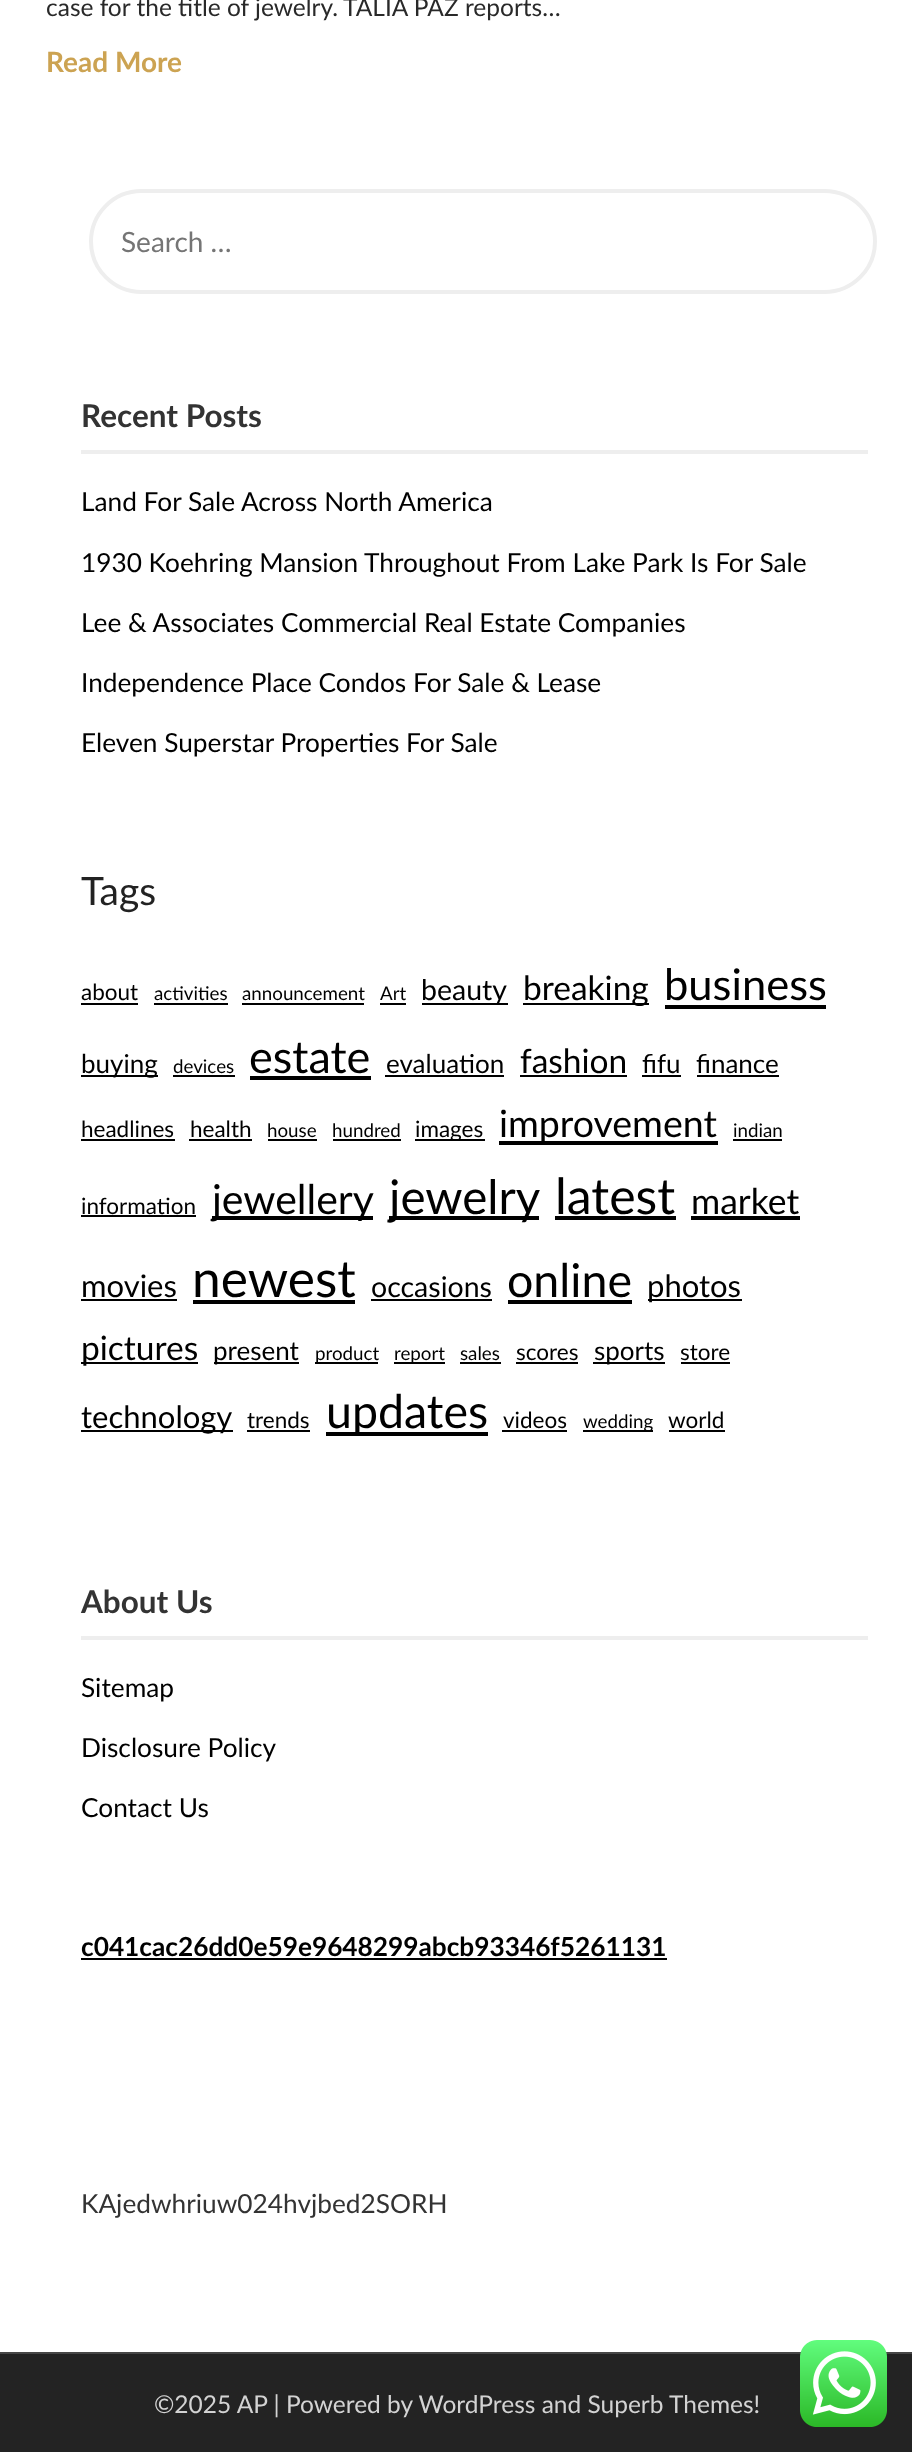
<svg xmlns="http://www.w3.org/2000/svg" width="912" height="2452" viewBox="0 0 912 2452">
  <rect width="100%" height="100%" fill="#fff"/>
  <rect x="91" y="191" width="784" height="101" rx="50.5" fill="none" stroke="#eee" stroke-width="4"/>
  <path d="M81 450h787v4H81z" fill="#eee"/>
  <path d="M81 1003h57v2H81z" fill="#000"/>
  <path d="M154 1003h74v2H154z" fill="#000"/>
  <path d="M242 1003h122v2H242z" fill="#000"/>
  <path d="M380 1003h26v2H380z" fill="#000"/>
  <path d="M422 1003h86v2H422z" fill="#000"/>
  <path d="M523 1003h126v2H523z" fill="#000"/>
  <path d="M665 1005h161v4H665z" fill="#000"/>
  <path d="M81 1075h77v2H81z" fill="#000"/>
  <path d="M173 1075h62v2H173z" fill="#000"/>
  <path d="M250 1076h121v4H250z" fill="#000"/>
  <path d="M385 1075h119v2H385z" fill="#000"/>
  <path d="M520 1075h107v2H520z" fill="#000"/>
  <path d="M642 1075h39v2H642z" fill="#000"/>
  <path d="M697 1075h82v2H697z" fill="#000"/>
  <path d="M81 1139h94v2H81z" fill="#000"/>
  <path d="M189 1139h63v2H189z" fill="#000"/>
  <path d="M268 1139h49v2H268z" fill="#000"/>
  <path d="M333 1139h68v2H333z" fill="#000"/>
  <path d="M415 1139h70v2H415z" fill="#000"/>
  <path d="M499 1141h219v4H499z" fill="#000"/>
  <path d="M733 1139h49v2H733z" fill="#000"/>
  <path d="M81 1215h115v2H81z" fill="#000"/>
  <path d="M212 1216h161v4H212z" fill="#000"/>
  <path d="M389 1216h150v4H389z" fill="#000"/>
  <path d="M555 1216h121v4H555z" fill="#000"/>
  <path d="M691 1216h109v4H691z" fill="#000"/>
  <path d="M81 1299h96v2H81z" fill="#000"/>
  <path d="M193 1300h162v4H193z" fill="#000"/>
  <path d="M371 1299h121v2H371z" fill="#000"/>
  <path d="M508 1300h124v4H508z" fill="#000"/>
  <path d="M648 1299h94v2H648z" fill="#000"/>
  <path d="M81 1362h117v2H81z" fill="#000"/>
  <path d="M214 1362h85v2H214z" fill="#000"/>
  <path d="M315 1362h63v2H315z" fill="#000"/>
  <path d="M394 1362h51v2H394z" fill="#000"/>
  <path d="M460 1362h41v2H460z" fill="#000"/>
  <path d="M516 1362h62v2H516z" fill="#000"/>
  <path d="M593 1362h72v2H593z" fill="#000"/>
  <path d="M681 1362h49v2H681z" fill="#000"/>
  <path d="M81 1430h152v2H81z" fill="#000"/>
  <path d="M247 1430h63v2H247z" fill="#000"/>
  <path d="M326 1432h162v4H326z" fill="#000"/>
  <path d="M502 1430h65v2H502z" fill="#000"/>
  <path d="M583 1430h70v2H583z" fill="#000"/>
  <path d="M669 1430h56v2H669z" fill="#000"/>
  <path d="M81 1636h787v4H81z" fill="#eee"/>
  <path d="M81 1958h586v2H81z" fill="#000"/>
  <path d="M0 2354h912v98H0z" fill="#232323"/>
  <path d="M0 2352h912v2H0z" fill="#464646"/>
  <image x="800" y="2340" width="87" height="87" href="img/1.png"/>
  <g font-family="Lato" font-size="24.5" fill="#292929">
    <text x="46" y="16">case for the title of jewelry.</text>
    <text x="343" y="16">TALIA PAZ reports…</text>
  </g>
  <text x="46" y="72" font-family="Lato" font-size="28" font-weight="bold" fill="#cca352">Read More</text>
  <text x="121" y="252" font-family="Lato" font-size="28" fill="#757575">Search …</text>
  <text x="81" y="427" font-family="Lato" font-size="31.5" font-weight="bold" fill="#333">Recent Posts</text>
  <g font-family="Lato" font-size="26.25" fill="#000">
    <text x="81" y="511">Land For Sale Across North America</text>
    <text x="81" y="572">1930 Koehring Mansion Throughout From Lake Park Is For Sale</text>
    <text x="81" y="632">Lee &amp; Associates Commercial Real Estate Companies</text>
    <text x="81" y="692">Independence Place Condos For Sale &amp; Lease</text>
    <text x="81" y="752">Eleven Superstar Properties For Sale</text>
  </g>
  <text x="81" y="905" font-family="Lato" font-size="39" fill="#222">Tags</text>
  <text x="81" y="1000" font-family="Lato" font-size="22.5" fill="#000">about</text>
  <g font-family="Lato" font-size="18.75" fill="#000">
    <text x="154" y="1000">activities</text>
    <text x="242" y="1000">announcement</text>
    <text x="380" y="1000">Art</text>
  </g>
  <text x="421" y="1000" font-family="Lato" font-size="28.5" fill="#000">beauty</text>
  <text x="523" y="1000" font-family="Lato" font-size="33.5" fill="#000">breaking</text>
  <text x="664" y="1000" font-family="Lato" font-size="43.5" fill="#000">business</text>
  <text x="81" y="1073" font-family="Lato" font-size="26" fill="#000">buying</text>
  <text x="173" y="1073" font-family="Lato" font-size="18.75" fill="#000">devices</text>
  <text x="249" y="1073" font-family="Lato" font-size="45" fill="#000">estate</text>
  <text x="386" y="1073" font-family="Lato" font-size="26" fill="#000">evaluation</text>
  <text x="520" y="1073" font-family="Lato" font-size="33.5" fill="#000">fashion</text>
  <g font-family="Lato" font-size="26" fill="#000">
    <text x="642" y="1073">fifu</text>
    <text x="696" y="1073">finance</text>
  </g>
  <g font-family="Lato" font-size="22.5" fill="#000">
    <text x="81" y="1137">headlines</text>
    <text x="190" y="1137">health</text>
  </g>
  <g font-family="Lato" font-size="18.75" fill="#000">
    <text x="267" y="1137">house</text>
    <text x="332" y="1137">hundred</text>
  </g>
  <text x="415" y="1137" font-family="Lato" font-size="22.5" fill="#000">images</text>
  <text x="499" y="1137" font-family="Lato" font-size="37.5" fill="#000">improvement</text>
  <text x="733" y="1137" font-family="Lato" font-size="18.75" fill="#000">indian</text>
  <text x="81" y="1214" font-family="Lato" font-size="22.5" fill="#000">information</text>
  <text x="212" y="1214" font-family="Lato" font-size="41" fill="#000">jewellery</text>
  <text x="389" y="1214" font-family="Lato" font-size="47.5" fill="#000">jewelry</text>
  <text x="555" y="1214" font-family="Lato" font-size="50" fill="#000">latest</text>
  <text x="691" y="1214" font-family="Lato" font-size="35.5" fill="#000">market</text>
  <text x="81" y="1297" font-family="Lato" font-size="31" fill="#000">movies</text>
  <text x="192" y="1297" font-family="Lato" font-size="51.5" fill="#000">newest</text>
  <text x="371" y="1297" font-family="Lato" font-size="28.5" fill="#000">occasions</text>
  <text x="507" y="1297" font-family="Lato" font-size="46.5" fill="#000">online</text>
  <text x="647" y="1297" font-family="Lato" font-size="31" fill="#000">photos</text>
  <text x="81" y="1360" font-family="Lato" font-size="33.5" fill="#000">pictures</text>
  <text x="213" y="1360" font-family="Lato" font-size="26" fill="#000">present</text>
  <g font-family="Lato" font-size="18.75" fill="#000">
    <text x="315" y="1360">product</text>
    <text x="394" y="1360">report</text>
    <text x="460" y="1360">sales</text>
  </g>
  <text x="516" y="1360" font-family="Lato" font-size="22.5" fill="#000">scores</text>
  <text x="594" y="1360" font-family="Lato" font-size="26" fill="#000">sports</text>
  <text x="680" y="1360" font-family="Lato" font-size="22.5" fill="#000">store</text>
  <text x="81" y="1428" font-family="Lato" font-size="31" fill="#000">technology</text>
  <text x="247" y="1428" font-family="Lato" font-size="22.5" fill="#000">trends</text>
  <text x="326" y="1428" font-family="Lato" font-size="46.5" fill="#000">updates</text>
  <text x="503" y="1428" font-family="Lato" font-size="22.5" fill="#000">videos</text>
  <text x="583" y="1428" font-family="Lato" font-size="18.75" fill="#000">wedding</text>
  <text x="668" y="1428" font-family="Lato" font-size="22.5" fill="#000">world</text>
  <text x="81" y="1613" font-family="Lato" font-size="31.5" font-weight="bold" fill="#333">About Us</text>
  <g font-family="Lato" font-size="26.25" fill="#000">
    <text x="81" y="1697">Sitemap</text>
    <text x="81" y="1757">Disclosure Policy</text>
    <text x="81" y="1817">Contact Us</text>
  </g>
  <text x="81" y="1956" font-family="Lato" font-size="26.25" font-weight="bold" fill="#000">c041cac26dd0e59e9648299abcb93346f5261131</text>
  <text x="81" y="2213" font-family="Lato" font-size="26.25" fill="#333">KAjedwhriuw024hvjbed2SORH</text>
  <text x="154" y="2413" font-family="Lato" font-size="24.5" fill="#d3d3d3">©2025 AP | Powered by WordPress and Superb Themes!</text>
</svg>
